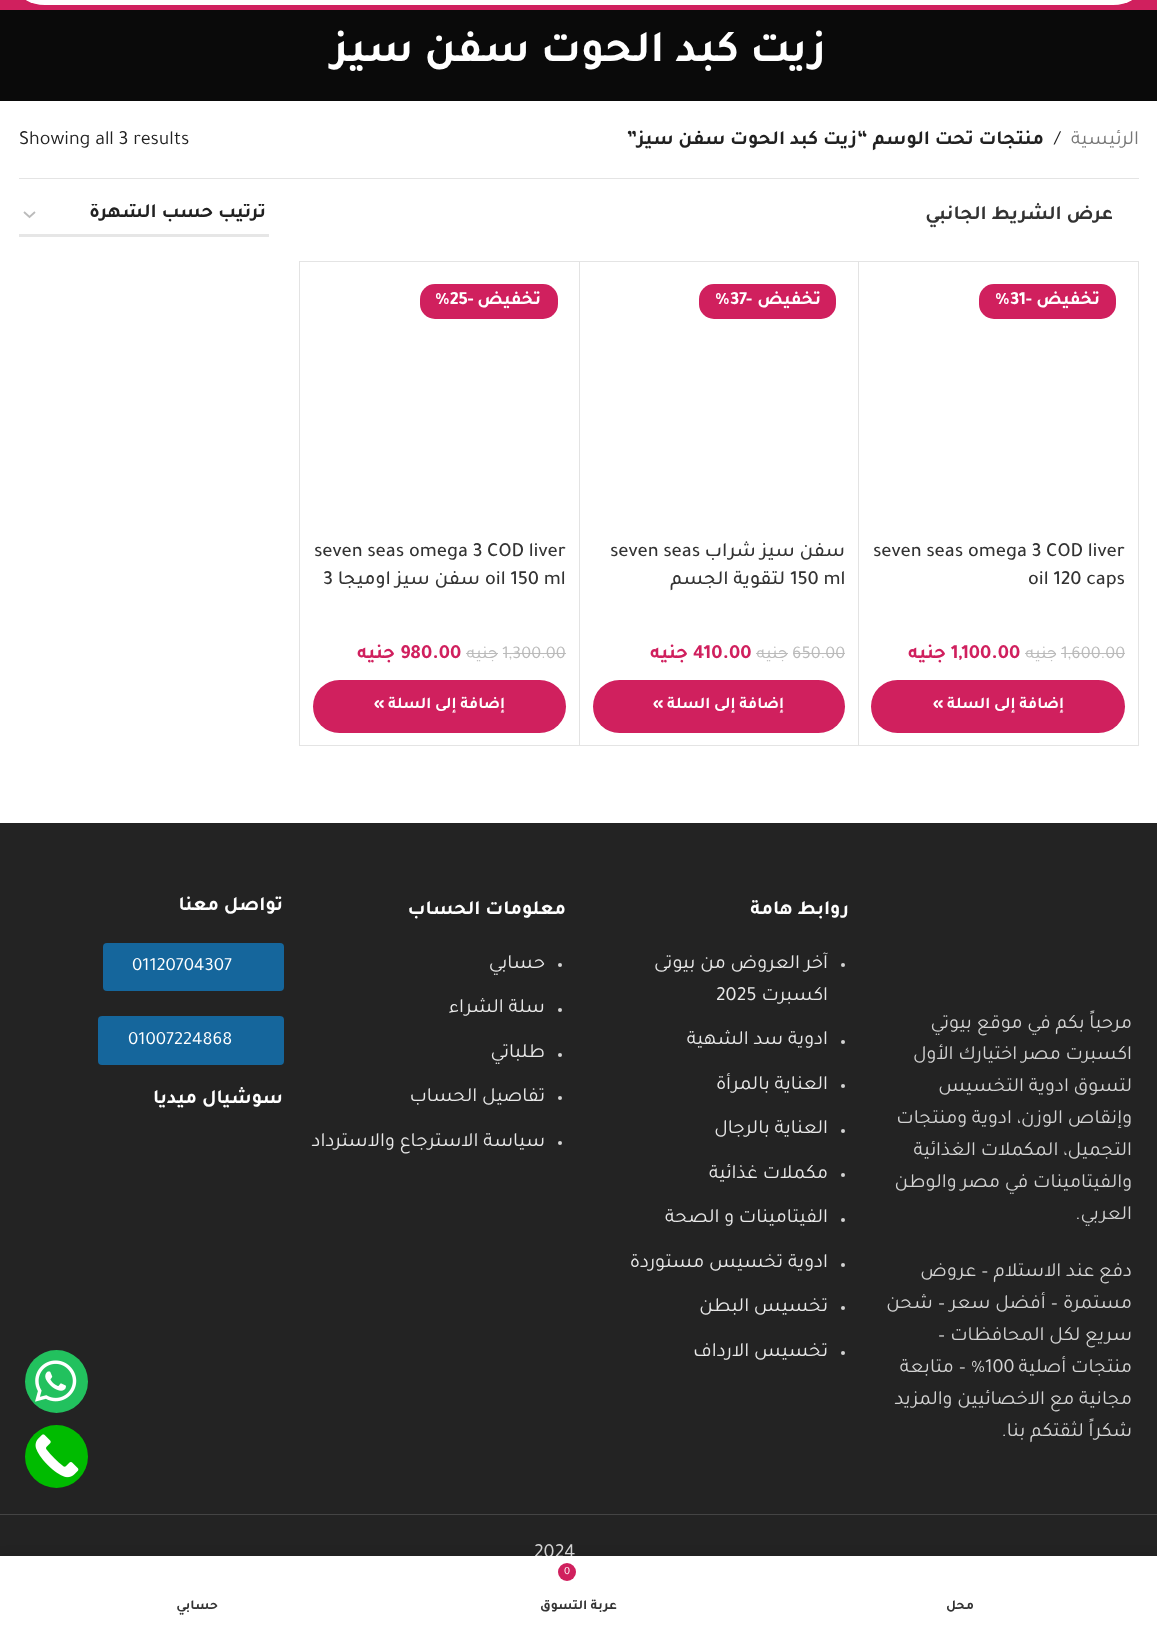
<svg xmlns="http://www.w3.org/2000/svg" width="1157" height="1625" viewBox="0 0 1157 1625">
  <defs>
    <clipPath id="clip1"><path d="M44 204h222v24H44z"/></clipPath>
  </defs>
  <rect width="100%" height="100%" fill="#fff"/>
  <path d="M0 0h1157v10H0z" fill="#d0205e"/>
  <rect x="19" y="-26" width="1120" height="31" rx="26" fill="#fff"/>
  <rect x="20.5" y="-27.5" width="1117" height="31" rx="24.5" fill="none" stroke="#ffffff33" stroke-width="3"/>
  <path d="M0 10h1157v91H0z" fill="#0a0a0a"/>
  <path d="M19 178h1120v1H19z" fill="#e4e4e4"/>
  <path d="M24 212L29.5 217L35 212" fill="none" stroke="#bbb" stroke-width="1.8"/>
  <path d="M19 234h250v3H19z" fill="#e6e6e6"/>
  <path d="M1138 261h1v485H1138z" fill="#e4e4e4"/>
  <path d="M858 261H1138V262H859Z" fill="#e4e4e4"/>
  <path d="M1138 746H858L859 745H1138Z" fill="#e4e4e4"/>
  <path d="M858 746V261L859 262V745Z" fill="#0000001c"/>
  <rect x="979" y="284" width="137" height="35" rx="15" fill="#d0205e"/>
  <path d="M1061 653h64v1H1061z" fill="#bbb"/>
  <path d="M1025 653h31v1H1025z" fill="#bbb"/>
  <rect x="871" y="680" width="254" height="53" rx="26.5" fill="#d0205e"/>
  <path d="M579 261H858V262H580Z" fill="#e4e4e4"/>
  <path d="M858 746H579L580 745H858Z" fill="#e4e4e4"/>
  <path d="M579 746V261L580 262V745Z" fill="#0000001c"/>
  <rect x="699" y="284" width="137" height="35" rx="15" fill="#d0205e"/>
  <path d="M793 653h52v1H793z" fill="#bbb"/>
  <path d="M756 653h32v1H756z" fill="#bbb"/>
  <rect x="593" y="680" width="252" height="53" rx="26.5" fill="#d0205e"/>
  <path d="M299 261H579V262H300Z" fill="#e4e4e4"/>
  <path d="M579 746H299L300 745H579Z" fill="#e4e4e4"/>
  <path d="M299 746V261L300 262V745Z" fill="#0000001c"/>
  <rect x="420" y="284" width="138" height="35" rx="15" fill="#d0205e"/>
  <path d="M503 653h63v1H503z" fill="#bbb"/>
  <path d="M466 653h32v1H466z" fill="#bbb"/>
  <rect x="313" y="680" width="253" height="53" rx="26.5" fill="#d0205e"/>
  <path d="M0 823h1157v733H0z" fill="#232323"/>
  <circle cx="843" cy="965" r="2" fill="#d3d3d3"/>
  <circle cx="843" cy="1042" r="2" fill="#d3d3d3"/>
  <circle cx="843" cy="1086" r="2" fill="#d3d3d3"/>
  <circle cx="843" cy="1131" r="2" fill="#d3d3d3"/>
  <circle cx="843" cy="1175" r="2" fill="#d3d3d3"/>
  <circle cx="843" cy="1220" r="2" fill="#d3d3d3"/>
  <circle cx="843" cy="1265" r="2" fill="#d3d3d3"/>
  <circle cx="843" cy="1308" r="2" fill="#d3d3d3"/>
  <circle cx="843" cy="1353" r="2" fill="#d3d3d3"/>
  <circle cx="560" cy="965" r="2" fill="#d3d3d3"/>
  <circle cx="560" cy="1010" r="2" fill="#d3d3d3"/>
  <circle cx="560" cy="1055" r="2" fill="#d3d3d3"/>
  <circle cx="560" cy="1098" r="2" fill="#d3d3d3"/>
  <circle cx="560" cy="1143" r="2" fill="#d3d3d3"/>
  <rect x="103" y="943" width="181" height="48" rx="4" fill="#15669c"/>
  <rect x="98" y="1016" width="186" height="49" rx="4" fill="#15669c"/>
  <path d="M0 1514h1157v1H0z" fill="#444"/>
  <circle cx="56.5" cy="1381.5" r="31.5" fill="#22c15e"/>
  <image x="35" y="1360" width="42" height="42" href="img/1.png"/>
  <circle cx="56.5" cy="1456.5" r="31.5" fill="#0b0"/>
  <image x="35" y="1434" width="44" height="44" href="img/2.png"/>
  <path d="M0 1556h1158v69H0z" fill="#0000001f" filter="blur(5.5px)"/>
  <text x="826" y="61" font-family="Tajawal" font-size="45" font-weight="bold" direction="rtl" fill="#fff">زيت كبد الحوت سفن سيز</text>
  <text x="1139" y="144" font-family="Tajawal" font-size="20" direction="rtl" fill="#767676">الرئيسية</text>
  <text x="1054" y="144" font-family="Tajawal" font-size="20" fill="#212121">/</text>
  <text x="1044" y="144" font-family="Tajawal" font-size="20" font-weight="bold" direction="rtl" fill="#212121">منتجات تحت الوسم “زيت كبد الحوت سفن سيز”</text>
  <text x="19" y="144" font-family="Tajawal" font-size="20" fill="#212121">Showing all 3 results</text>
  <text x="1113" y="219" font-family="Tajawal" font-size="20" font-weight="bold" direction="rtl" fill="#333">عرض الشريط الجانبي</text>
  <g clip-path="url(#clip1)">
    <text x="266" y="217" font-family="Tajawal" font-size="20" font-weight="bold" direction="rtl" fill="#212121">ترتيب حسب الشهرة</text>
  </g>
  <text x="1100" y="304" font-family="Tajawal" font-size="18.75" font-weight="bold" direction="rtl" fill="#fff">تخفيض</text>
  <text x="995" y="304" font-family="Tajawal" font-size="18.75" font-weight="bold" fill="#fff">%31-</text>
  <g font-family="Tajawal" font-size="20" font-weight="500" fill="#333">
    <text x="873" y="556">seven seas omega 3 COD liver</text>
    <text x="1028" y="584">oil 120 caps</text>
  </g>
  <text x="1061" y="658" font-family="Tajawal" font-size="18" fill="#bbb">1,600.00</text>
  <text x="1057" y="658" font-family="Tajawal" font-size="18" direction="rtl" fill="#bbb">جنيه</text>
  <text x="951" y="658" font-family="Tajawal" font-size="20" font-weight="bold" fill="#d0205e">1,100.00</text>
  <text x="946" y="658" font-family="Tajawal" font-size="20" font-weight="bold" direction="rtl" fill="#d0205e">جنيه</text>
  <text x="1064" y="708" font-family="Tajawal" font-size="16.25" font-weight="bold" direction="rtl" fill="#fff">إضافة إلى السلة »</text>
  <text x="821" y="304" font-family="Tajawal" font-size="18.75" font-weight="bold" direction="rtl" fill="#fff">تخفيض</text>
  <text x="715" y="304" font-family="Tajawal" font-size="18.75" font-weight="bold" fill="#fff">%37-</text>
  <text x="845" y="556" font-family="Tajawal" font-size="20" font-weight="500" direction="rtl" fill="#333">سفن سيز شراب</text>
  <g font-family="Tajawal" font-size="20" font-weight="500" fill="#333">
    <text x="610" y="556">seven seas</text>
    <text x="790" y="584">150 ml</text>
  </g>
  <text x="785" y="584" font-family="Tajawal" font-size="20" font-weight="500" direction="rtl" fill="#333">لتقوية الجسم</text>
  <text x="792" y="658" font-family="Tajawal" font-size="18" fill="#bbb">650.00</text>
  <text x="788" y="658" font-family="Tajawal" font-size="18" direction="rtl" fill="#bbb">جنيه</text>
  <text x="693" y="658" font-family="Tajawal" font-size="20" font-weight="bold" fill="#d0205e">410.00</text>
  <text x="688" y="658" font-family="Tajawal" font-size="20" font-weight="bold" direction="rtl" fill="#d0205e">جنيه</text>
  <text x="784" y="708" font-family="Tajawal" font-size="16.25" font-weight="bold" direction="rtl" fill="#fff">إضافة إلى السلة »</text>
  <text x="541" y="304" font-family="Tajawal" font-size="18.75" font-weight="bold" direction="rtl" fill="#fff">تخفيض</text>
  <text x="435" y="304" font-family="Tajawal" font-size="18.75" font-weight="bold" fill="#fff">%25-</text>
  <g font-family="Tajawal" font-size="20" font-weight="500" fill="#333">
    <text x="314" y="556">seven seas omega 3 COD liver</text>
    <text x="485" y="584">oil 150 ml</text>
  </g>
  <text x="480" y="584" font-family="Tajawal" font-size="20" font-weight="500" direction="rtl" fill="#333">سفن سيز اوميجا</text>
  <text x="323" y="584" font-family="Tajawal" font-size="20" font-weight="500" fill="#333">3</text>
  <text x="502" y="658" font-family="Tajawal" font-size="18" fill="#bbb">1,300.00</text>
  <text x="498" y="658" font-family="Tajawal" font-size="18" direction="rtl" fill="#bbb">جنيه</text>
  <text x="400" y="658" font-family="Tajawal" font-size="20" font-weight="bold" fill="#d0205e">980.00</text>
  <text x="395" y="658" font-family="Tajawal" font-size="20" font-weight="bold" direction="rtl" fill="#d0205e">جنيه</text>
  <text x="505" y="708" font-family="Tajawal" font-size="16.25" font-weight="bold" direction="rtl" fill="#fff">إضافة إلى السلة »</text>
  <g font-family="Tajawal" font-size="20" direction="rtl" fill="#d3d3d3">
    <text x="1132" y="1028">مرحباً بكم في موقع بيوتي</text>
    <text x="1132" y="1059">اكسبرت مصر اختيارك الأول</text>
    <text x="1132" y="1091">لتسوق ادوية التخسيس</text>
    <text x="1132" y="1123">وإنقاص الوزن، ادوية ومنتجات</text>
    <text x="1132" y="1155">التجميل، المكملات الغذائية</text>
    <text x="1132" y="1187">والفيتامينات في مصر والوطن</text>
    <text x="1132" y="1219">العربي.</text>
    <text x="1132" y="1276">دفع عند الاستلام – عروض</text>
    <text x="1132" y="1308">مستمرة – أفضل سعر – شحن</text>
    <text x="1132" y="1340">سريع لكل المحافظات –</text>
    <text x="1132" y="1372">منتجات أصلية</text>
  </g>
  <text x="985" y="1372" font-family="Tajawal" font-size="20" fill="#d3d3d3">100</text>
  <g font-family="Tajawal" font-size="20" direction="rtl" fill="#d3d3d3">
    <text x="985" y="1372">% – متابعة</text>
    <text x="1132" y="1404">مجانية مع الاخصائيين والمزيد</text>
    <text x="1132" y="1436">شكراً لثقتكم بنا.</text>
  </g>
  <text x="849" y="914" font-family="Tajawal" font-size="20" font-weight="bold" direction="rtl" fill="#fff">روابط هامة</text>
  <g font-family="Tajawal" font-size="20" direction="rtl" fill="#e9e9e9">
    <text x="828" y="968">آخر العروض من بيوتى</text>
    <text x="828" y="1000">اكسبرت</text>
  </g>
  <text x="716" y="1000" font-family="Tajawal" font-size="20" fill="#e9e9e9">2025</text>
  <g font-family="Tajawal" font-size="20" direction="rtl" fill="#e9e9e9">
    <text x="828" y="1044">ادوية سد الشهية</text>
    <text x="828" y="1089">العناية بالمرأة</text>
    <text x="828" y="1133">العناية بالرجال</text>
    <text x="828" y="1178">مكملات غذائية</text>
    <text x="828" y="1222">الفيتامينات و الصحة</text>
    <text x="828" y="1267">ادوية تخسيس مستوردة</text>
    <text x="828" y="1311">تخسيس البطن</text>
    <text x="828" y="1356">تخسيس الارداف</text>
  </g>
  <text x="566" y="914" font-family="Tajawal" font-size="20" font-weight="bold" direction="rtl" fill="#fff">معلومات الحساب</text>
  <g font-family="Tajawal" font-size="20" direction="rtl" fill="#e9e9e9">
    <text x="545" y="968">حسابي</text>
    <text x="545" y="1012">سلة الشراء</text>
    <text x="545" y="1057">طلباتي</text>
    <text x="545" y="1101">تفاصيل الحساب</text>
    <text x="545" y="1146">سياسة الاسترجاع والاسترداد</text>
  </g>
  <text x="283" y="910" font-family="Tajawal" font-size="20" font-weight="bold" direction="rtl" fill="#fff">تواصل معنا</text>
  <g font-family="Tajawal" font-size="18.75" fill="#fff">
    <text x="132" y="970">01120704307</text>
    <text x="128" y="1044">01007224868</text>
  </g>
  <text x="283" y="1103" font-family="Tajawal" font-size="20" font-weight="bold" direction="rtl" fill="#fff">سوشيال ميديا</text>
  <text x="534" y="1557" font-family="Tajawal" font-size="20" fill="#d3d3d3">2024</text>
  <path d="M0 1556h1157v69H0z" fill="#fff"/>
  <text x="974" y="1609" font-family="Tajawal" font-size="13.75" font-weight="bold" direction="rtl" fill="#333">محل</text>
  <circle cx="567" cy="1572" r="9" fill="#d0205e"/>
  <text x="564" y="1574" font-family="Tajawal" font-size="11" fill="#fff">0</text>
  <g font-family="Tajawal" font-size="13.75" font-weight="bold" direction="rtl" fill="#333">
    <text x="617" y="1609">عربة التسوق</text>
    <text x="218" y="1609">حسابي</text>
  </g>
</svg>
